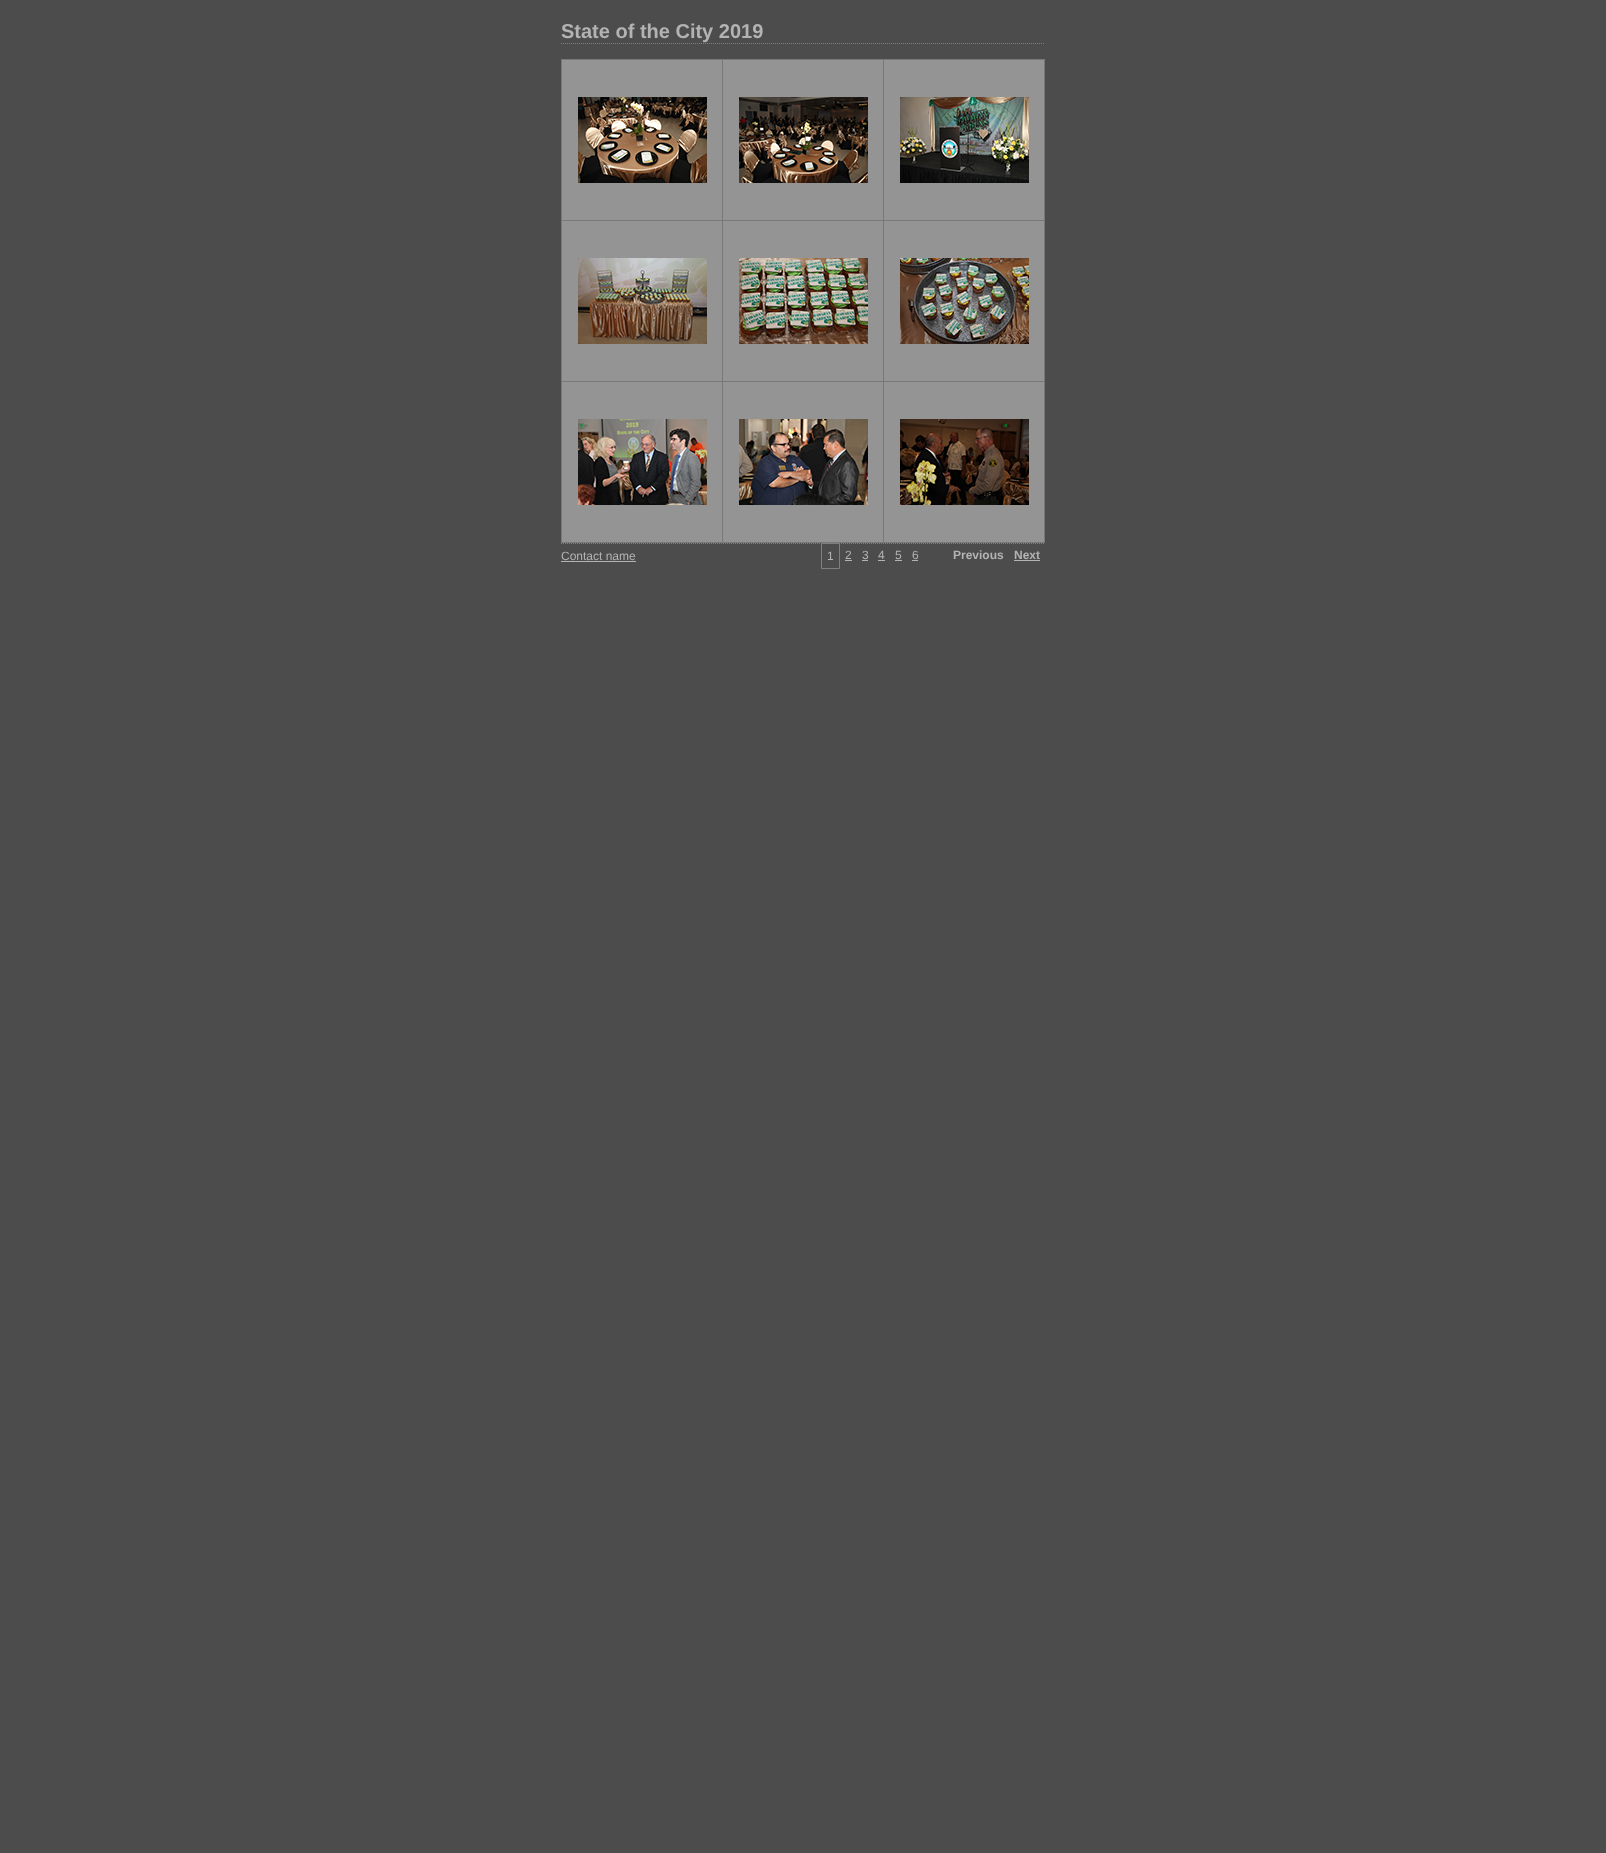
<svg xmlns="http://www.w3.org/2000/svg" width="1606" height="1853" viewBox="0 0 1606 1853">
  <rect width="100%" height="100%" fill="#4c4c4c"/>
  <path d="M561 43.5H1045" fill="none" stroke="#7f7f7f" stroke-dasharray="1 1"/>
  <path d="M562 60h160v160H562z" fill="#949494"/>
  <path d="M561 59h484v1H561z" fill="#787878"/>
  <path d="M561 59h1v161H561z" fill="#787878"/>
  <image x="578" y="97" width="129" height="86" href="img/1.png"/>
  <path d="M723 60h160v160H723z" fill="#949494"/>
  <path d="M722 59h1v161H722z" fill="#787878"/>
  <image x="739" y="97" width="129" height="86" href="img/2.png"/>
  <path d="M884 60h160v160H884z" fill="#949494"/>
  <path d="M1044 59h1v161H1044z" fill="#787878"/>
  <path d="M883 59h1v161H883z" fill="#787878"/>
  <image x="900" y="97" width="129" height="86" href="img/3.png"/>
  <path d="M562 221h160v160H562z" fill="#949494"/>
  <path d="M561 220h484v1H561z" fill="#787878"/>
  <path d="M561 220h1v161H561z" fill="#787878"/>
  <image x="578" y="258" width="129" height="86" href="img/4.png"/>
  <path d="M723 221h160v160H723z" fill="#949494"/>
  <path d="M722 220h1v161H722z" fill="#787878"/>
  <image x="739" y="258" width="129" height="86" href="img/5.png"/>
  <path d="M884 221h160v160H884z" fill="#949494"/>
  <path d="M1044 220h1v161H1044z" fill="#787878"/>
  <path d="M883 220h1v161H883z" fill="#787878"/>
  <image x="900" y="258" width="129" height="86" href="img/6.png"/>
  <path d="M562 382h160v160H562z" fill="#949494"/>
  <path d="M561 381h322v1H561z" fill="#787878"/>
  <path d="M561 542h322v1H561z" fill="#787878"/>
  <path d="M561 381h1v162H561z" fill="#787878"/>
  <image x="578" y="419" width="129" height="86" href="img/7.png"/>
  <path d="M723 382h160v160H723z" fill="#949494"/>
  <path d="M722 381h1v162H722z" fill="#787878"/>
  <image x="739" y="419" width="129" height="86" href="img/8.png"/>
  <path d="M883.5 381.5h161v161H883.5z" fill="#949494" stroke="#787878"/>
  <image x="900" y="419" width="129" height="86" href="img/9.png"/>
  <path d="M561 543.5H1045" fill="none" stroke="#7f7f7f" stroke-dasharray="1 1"/>
  <path d="M561 561h75v1H561z" fill="#b3b3b3"/>
  <path d="M821.5 543.5h18v25H821.5z" fill="none" stroke="#7f7f7f"/>
  <path d="M845 560h7v1H845z" fill="#b3b3b3"/>
  <path d="M862 560h6v1H862z" fill="#b3b3b3"/>
  <path d="M878 560h7v1H878z" fill="#b3b3b3"/>
  <path d="M895 560h7v1H895z" fill="#b3b3b3"/>
  <path d="M912 560h6v1H912z" fill="#b3b3b3"/>
  <path d="M1014 560h26v1H1014z" fill="#b3b3b3"/>
  <text x="561" y="38" font-family="Liberation Sans" font-size="20" font-weight="bold" fill="#b3b3b3">State of the City 2019</text>
  <g font-family="Liberation Sans" font-size="12" fill="#b3b3b3">
    <text x="561" y="560">Contact name</text>
    <text x="827" y="560">1</text>
    <text x="845" y="559">2</text>
    <text x="862" y="559">3</text>
    <text x="878" y="559">4</text>
    <text x="895" y="559">5</text>
    <text x="912" y="559">6</text>
  </g>
  <g font-family="Liberation Sans" font-size="12" font-weight="bold" fill="#b3b3b3">
    <text x="953" y="559">Previous</text>
    <text x="1014" y="559">Next</text>
  </g>
</svg>
